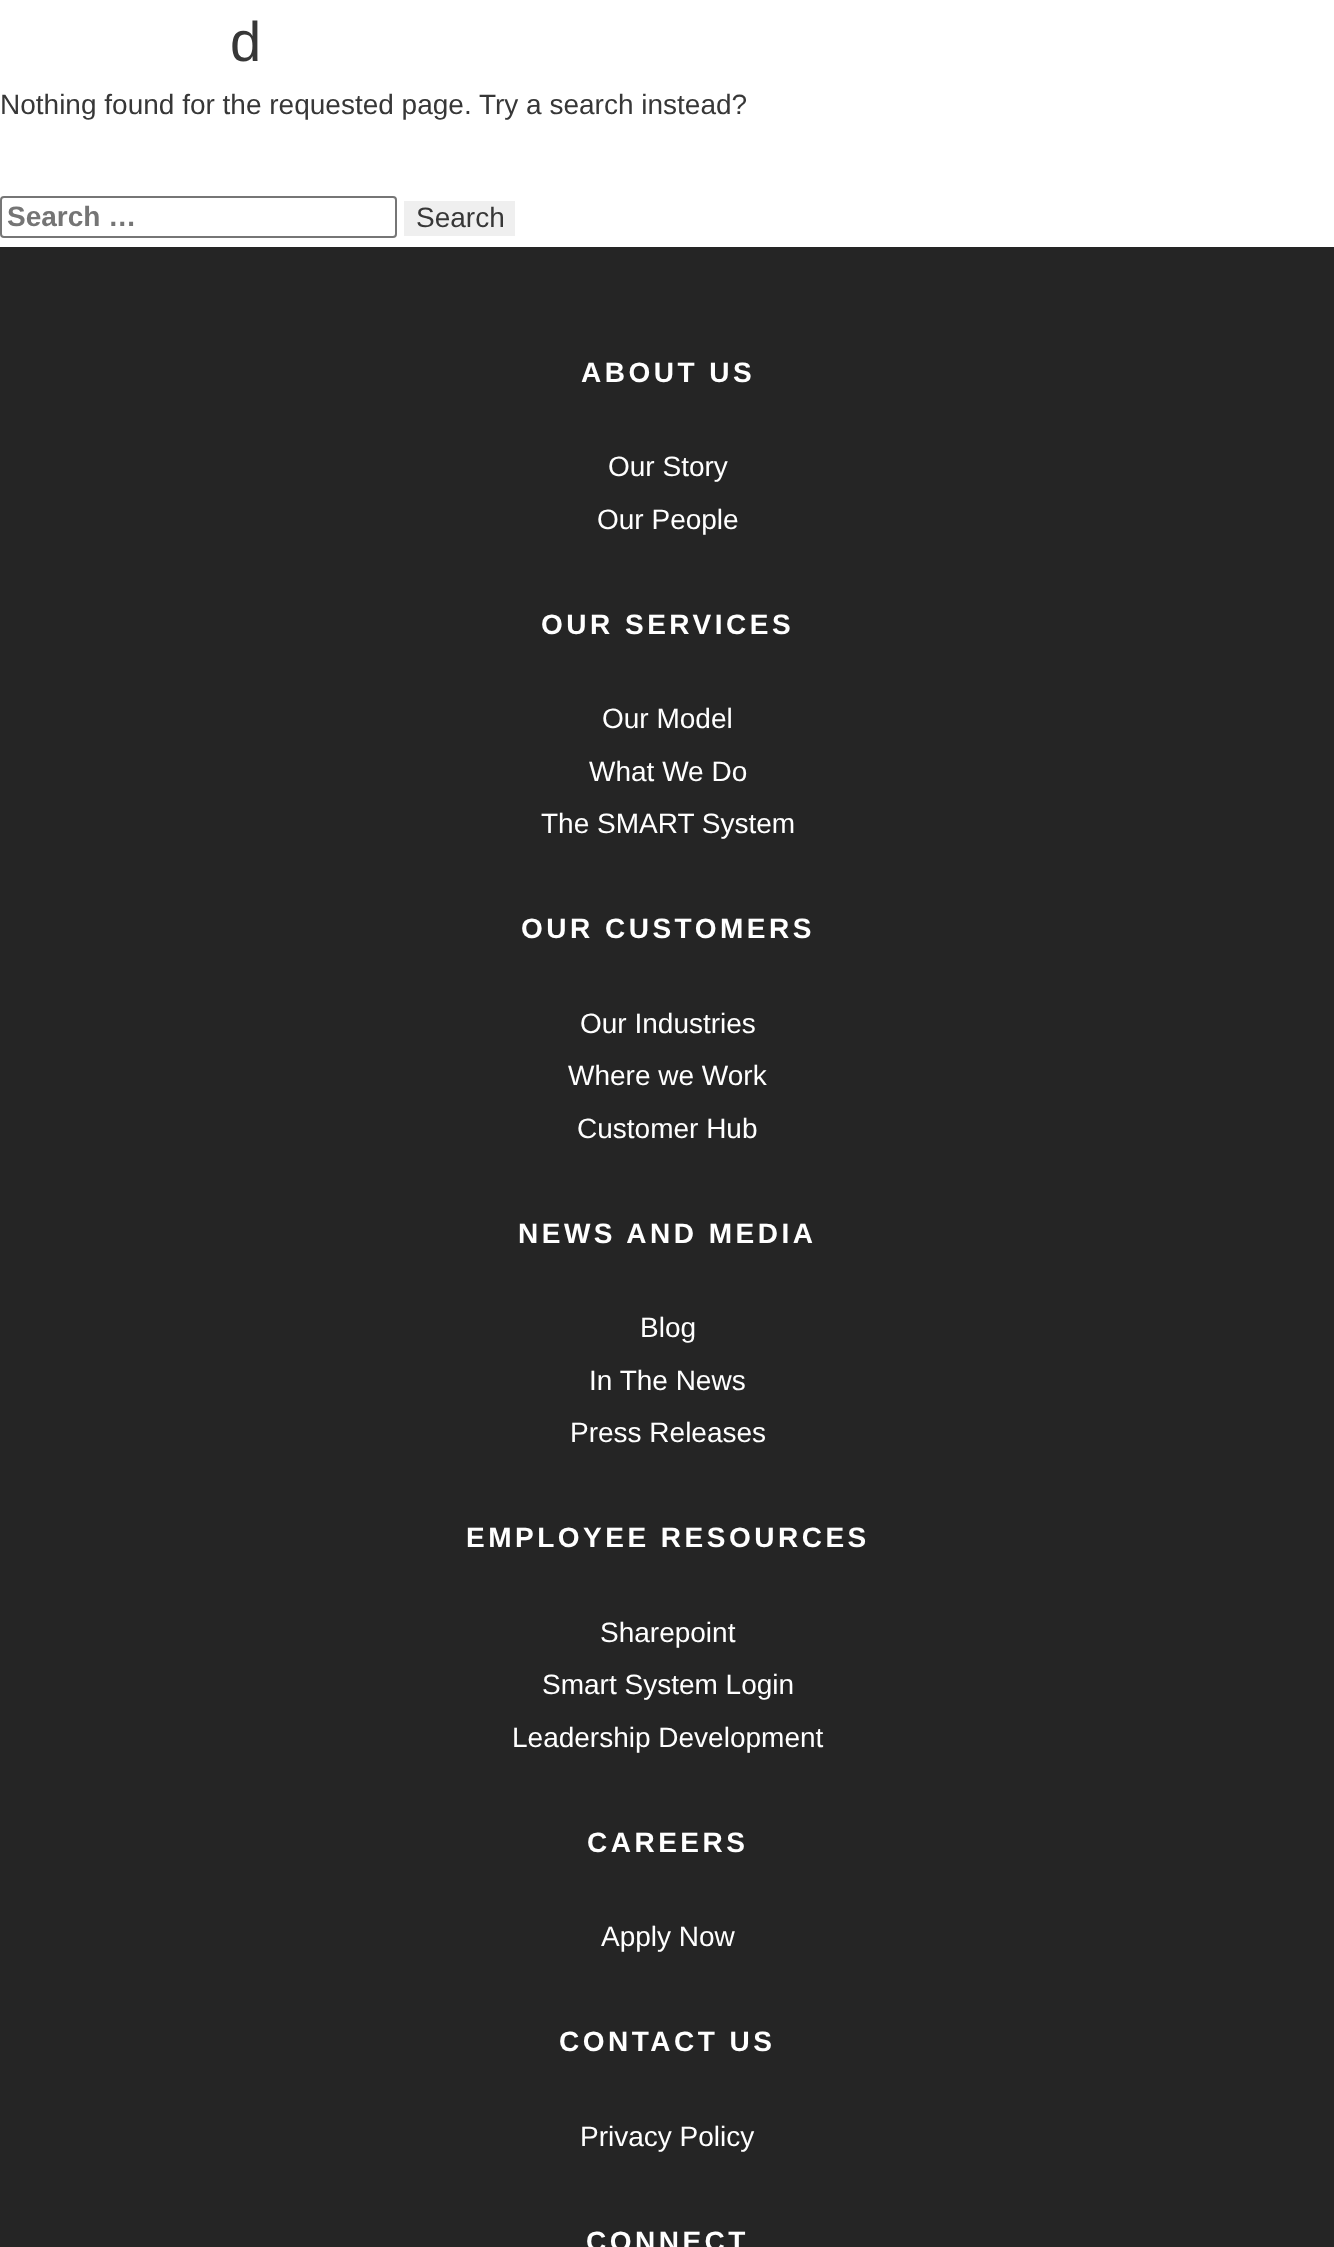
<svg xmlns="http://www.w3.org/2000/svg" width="1334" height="2247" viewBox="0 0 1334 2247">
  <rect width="100%" height="100%" fill="#fff"/>
  <rect x="1" y="197" width="395" height="40" rx="3" fill="none" stroke="#767676" stroke-width="2"/>
  <path d="M404 201h111v35H404z" fill="#efefef"/>
  <image x="24" y="22" width="203" height="40" href="img/1.png"/>
  <path d="M0 247h1334v2000H0z" fill="#252525"/>
  <text x="230" y="61" font-family="Liberation Sans" font-size="56" fill="#373737">d</text>
  <text x="0" y="114" font-family="Liberation Sans" font-size="28" fill="#373737">Nothing found for the requested page. Try a search instead?</text>
  <text x="7" y="226" font-family="Liberation Sans" font-size="28" font-weight="bold" fill="#757575">Search …</text>
  <text x="416" y="227" font-family="Liberation Sans" font-size="28" fill="#373737">Search</text>
  <text x="581" y="382" font-family="Liberation Sans" font-size="28" font-weight="bold" letter-spacing="3.5" fill="#fff">ABOUT US</text>
  <g font-family="Liberation Sans" font-size="28" fill="#fff">
    <text x="608" y="476">Our Story</text>
    <text x="597" y="529">Our People</text>
  </g>
  <text x="541" y="634" font-family="Liberation Sans" font-size="28" font-weight="bold" letter-spacing="3.5" fill="#fff">OUR SERVICES</text>
  <g font-family="Liberation Sans" font-size="28" fill="#fff">
    <text x="602" y="728">Our Model</text>
    <text x="589" y="781">What We Do</text>
    <text x="541" y="833">The SMART System</text>
  </g>
  <text x="521" y="938" font-family="Liberation Sans" font-size="28" font-weight="bold" letter-spacing="3.5" fill="#fff">OUR CUSTOMERS</text>
  <g font-family="Liberation Sans" font-size="28" fill="#fff">
    <text x="580" y="1033">Our Industries</text>
    <text x="568" y="1085">Where we Work</text>
    <text x="577" y="1138">Customer Hub</text>
  </g>
  <text x="518" y="1243" font-family="Liberation Sans" font-size="28" font-weight="bold" letter-spacing="3.5" fill="#fff">NEWS AND MEDIA</text>
  <g font-family="Liberation Sans" font-size="28" fill="#fff">
    <text x="640" y="1337">Blog</text>
    <text x="589" y="1390">In The News</text>
    <text x="570" y="1442">Press Releases</text>
  </g>
  <text x="466" y="1547" font-family="Liberation Sans" font-size="28" font-weight="bold" letter-spacing="3.5" fill="#fff">EMPLOYEE RESOURCES</text>
  <g font-family="Liberation Sans" font-size="28" fill="#fff">
    <text x="600" y="1642">Sharepoint</text>
    <text x="542" y="1694">Smart System Login</text>
    <text x="512" y="1747">Leadership Development</text>
  </g>
  <text x="587" y="1852" font-family="Liberation Sans" font-size="28" font-weight="bold" letter-spacing="3.5" fill="#fff">CAREERS</text>
  <text x="601" y="1946" font-family="Liberation Sans" font-size="28" fill="#fff">Apply Now</text>
  <text x="559" y="2051" font-family="Liberation Sans" font-size="28" font-weight="bold" letter-spacing="3.5" fill="#fff">CONTACT US</text>
  <text x="580" y="2146" font-family="Liberation Sans" font-size="28" fill="#fff">Privacy Policy</text>
  <text x="586" y="2251" font-family="Liberation Sans" font-size="28" font-weight="bold" letter-spacing="3.5" fill="#fff">CONNECT</text>
</svg>
